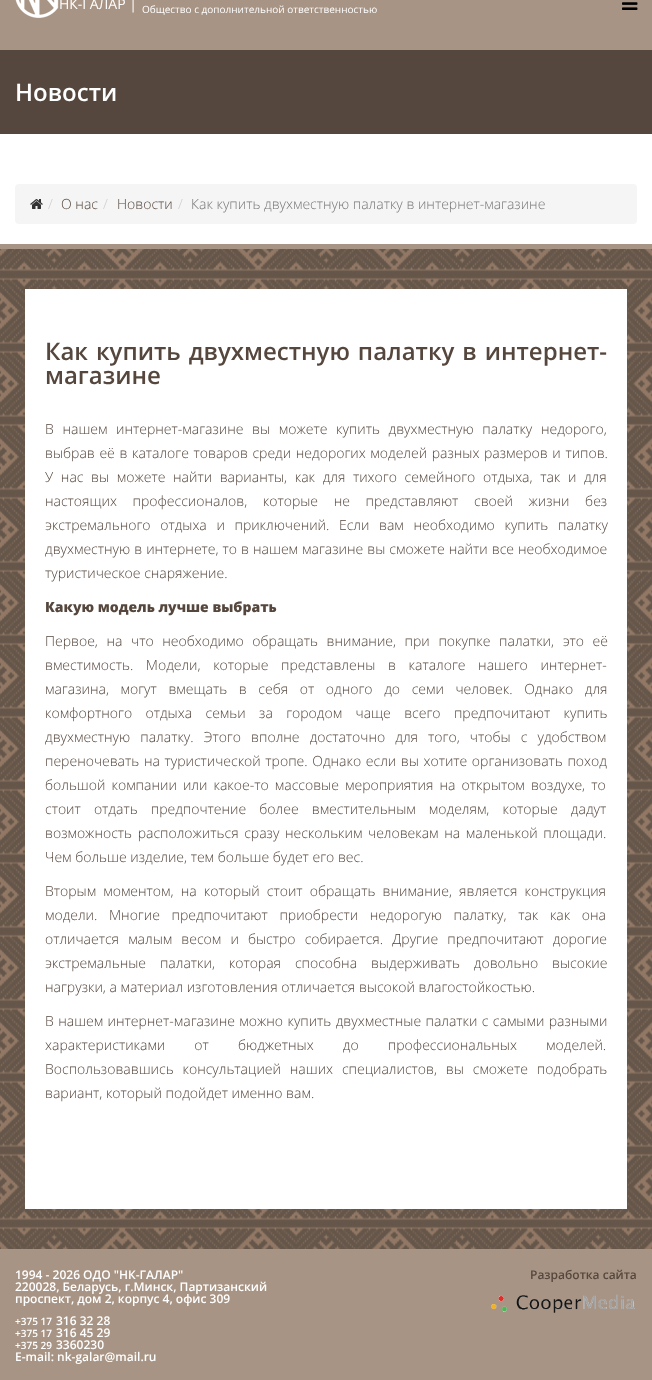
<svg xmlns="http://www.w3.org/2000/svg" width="652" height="1380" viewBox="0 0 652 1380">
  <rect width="100%" height="100%" fill="#fff"/>
  <path d="M0 0h652v50H0z" fill="#a79484"/>
  <image x="15" y="0" width="44" height="18" href="img/1.png"/>
  <image x="622" y="2" width="16" height="8" href="img/2.png"/>
  <path d="M0 244h652v5H0z" fill="#a79484"/>
  <path d="M0 50h652v84H0z" fill="#55473d"/>
  <rect x="15" y="184" width="622" height="40" rx="4" fill="#f5f5f5"/>
  <image x="30" y="199" width="13" height="10" href="img/3.png"/>
  <image x="0" y="249" width="652" height="1000" href="img/4.png"/>
  <path d="M25 289h602v920H25z" fill="#fff"/>
  <path d="M0 1249h652v131H0z" fill="#a79484"/>
  <image x="491" y="1294" width="144" height="19" href="img/5.png"/>
  <text x="59" y="9" font-family="Open Sans" font-size="14" fill="#fff">НК-ГАЛАР |</text>
  <text x="142" y="13" font-family="Open Sans" font-size="10" fill="#fff">Общество с дополнительной ответственностью</text>
  <text x="15" y="101" font-family="Open Sans" font-size="24" font-weight="600" fill="#fff">Новости</text>
  <text x="48" y="209" font-family="Open Sans" font-size="14" font-weight="300" fill="#ccc">/</text>
  <text x="61" y="209" font-family="Open Sans" font-size="14" font-weight="300" fill="#55473d">О нас</text>
  <text x="103" y="209" font-family="Open Sans" font-size="14" font-weight="300" fill="#ccc">/</text>
  <text x="117" y="209" font-family="Open Sans" font-size="14" font-weight="300" fill="#55473d">Новости</text>
  <text x="178" y="209" font-family="Open Sans" font-size="14" font-weight="300" fill="#ccc">/</text>
  <text x="191" y="209" font-family="Open Sans" font-size="14" font-weight="300" fill="#777">Как купить двухместную палатку в интернет-магазине</text>
  <g font-family="Open Sans" font-size="24" font-weight="600" fill="#55473d">
    <text x="45" y="360" word-spacing="1.75">Как купить двухместную палатку в интернет-</text>
    <text x="45" y="384">магазине</text>
  </g>
  <g font-family="Open Sans" font-size="14" font-weight="300" fill="#55473d">
    <text x="45" y="434" word-spacing="5">В нашем интернет-магазине вы можете купить двухместную палатку недорого,</text>
    <text x="45" y="458" word-spacing="1">выбрав её в каталоге товаров среди недорогих моделей разных размеров и типов.</text>
    <text x="45" y="482" word-spacing="4">У нас вы можете найти варианты, как для тихого семейного отдыха, так и для</text>
    <text x="45" y="506" word-spacing="12">настоящих профессионалов, которые не представляют своей жизни без</text>
    <text x="45" y="530" word-spacing="6">экстремального отдыха и приключений. Если вам необходимо купить палатку</text>
    <text x="45" y="554" word-spacing="0.4">двухместную в интернете, то в нашем магазине вы сможете найти все необходимое</text>
    <text x="45" y="578">туристическое снаряжение.</text>
  </g>
  <text x="45" y="612" font-family="Open Sans" font-size="14" font-weight="800" fill="#55473d">Какую модель лучше выбрать</text>
  <g font-family="Open Sans" font-size="14" font-weight="300" fill="#55473d">
    <text x="45" y="646" word-spacing="5">Первое, на что необходимо обращать внимание, при покупке палатки, это её</text>
    <text x="45" y="670" word-spacing="9">вместимость. Модели, которые представлены в каталоге нашего интернет-</text>
    <text x="45" y="694" word-spacing="8">магазина, могут вмещать в себя от одного до семи человек. Однако для</text>
    <text x="45" y="718" word-spacing="9.75">комфортного отдыха семьи за городом чаще всего предпочитают купить</text>
    <text x="45" y="742" word-spacing="6.5">двухместную палатку. Этого вполне достаточно для того, чтобы с удобством</text>
    <text x="45" y="766" word-spacing="1">переночевать на туристической тропе. Однако если вы хотите организовать поход</text>
    <text x="45" y="790" word-spacing="2.5">большой компании или какое-то массовые мероприятия на открытом воздухе, то</text>
    <text x="45" y="814" word-spacing="9.5">стоит отдать предпочтение более вместительным моделям, которые дадут</text>
    <text x="45" y="838" word-spacing="2">возможность расположиться сразу нескольким человекам на маленькой площади.</text>
    <text x="45" y="862">Чем больше изделие, тем больше будет его вес.</text>
    <text x="45" y="896" word-spacing="3.5">Вторым моментом, на который стоит обращать внимание, является конструкция</text>
    <text x="45" y="920" word-spacing="8">модели. Многие предпочитают приобрести недорогую палатку, так как она</text>
    <text x="45" y="944" word-spacing="5.5">отличается малым весом и быстро собирается. Другие предпочитают дорогие</text>
    <text x="45" y="968" word-spacing="10.25">экстремальные палатки, которая способна выдерживать довольно высокие</text>
    <text x="45" y="992">нагрузки, а материал изготовления отличается высокой влагостойкостью.</text>
    <text x="45" y="1026" word-spacing="0.75">В нашем интернет-магазине можно купить двухместные палатки с самыми разными</text>
    <text x="45" y="1050" word-spacing="25.5">характеристиками от бюджетных до профессиональных моделей.</text>
    <text x="45" y="1074" word-spacing="5.25">Воспользовавшись консультацией наших специалистов, вы сможете подобрать</text>
    <text x="45" y="1098">вариант, который подойдет именно вам.</text>
  </g>
  <g font-family="Open Sans" font-size="12" font-weight="600" fill="#fff">
    <text x="15" y="1279">1994 - 2026 ОДО "НК-ГАЛАР"</text>
    <text x="15" y="1291">220028, Беларусь, г.Минск, Партизанский</text>
    <text x="15" y="1303">проспект, дом 2, корпус 4, офис 309</text>
  </g>
  <text x="15" y="1325" font-family="Open Sans" font-size="10" font-weight="600" fill="#fff">+375 17</text>
  <text x="56" y="1325" font-family="Open Sans" font-size="12" font-weight="600" fill="#fff">316 32 28</text>
  <text x="15" y="1337" font-family="Open Sans" font-size="10" font-weight="600" fill="#fff">+375 17</text>
  <text x="56" y="1337" font-family="Open Sans" font-size="12" font-weight="600" fill="#fff">316 45 29</text>
  <text x="15" y="1349" font-family="Open Sans" font-size="10" font-weight="600" fill="#fff">+375 29</text>
  <g font-family="Open Sans" font-size="12" font-weight="600" fill="#fff">
    <text x="56" y="1349">3360230</text>
    <text x="15" y="1361">E-mail: nk-galar@mail.ru</text>
  </g>
  <text x="530" y="1279" font-family="Open Sans" font-size="12" font-weight="600" fill="#55473d">Разработка сайта</text>
</svg>
